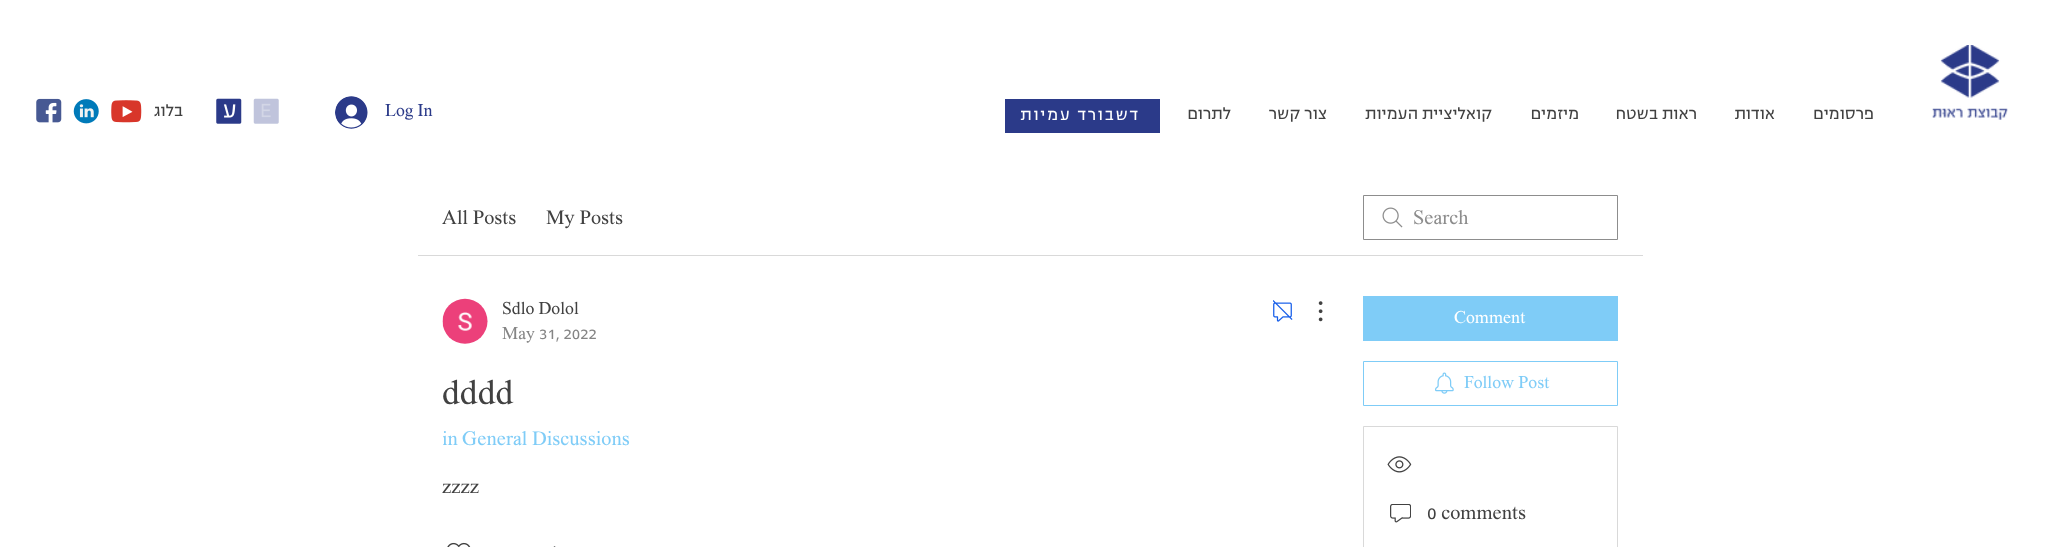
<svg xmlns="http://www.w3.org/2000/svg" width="2058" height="547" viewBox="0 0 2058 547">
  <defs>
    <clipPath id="clip1"><path d="M443 421h187v35H443z"/></clipPath>
  </defs>
  <rect width="100%" height="100%" fill="#fff"/>
  <image x="36" y="98" width="26" height="25" href="img/1.png"/>
  <image x="73" y="99" width="26" height="25" href="img/2.png"/>
  <image x="111" y="100" width="31" height="23" href="img/3.png"/>
  <image x="216" y="98" width="26" height="26" href="img/4.png"/>
  <image x="253" y="98" width="26" height="26" href="img/5.png"/>
  <image x="335" y="96" width="33" height="33" href="img/6.png"/>
  <path d="M1005 99h155v34H1005z" fill="#2b3a89"/>
  <image x="1932" y="45" width="76" height="75" href="img/7.png"/>
  <path d="M418 255h1225v1H418z" fill="#d9d9d9"/>
  <image x="1382" y="207" width="21" height="21" href="img/8.png"/>
  <path d="M1363.5 195.5h254v44H1363.5z" fill="none" stroke="#8d8d8d"/>
  <image x="442" y="298" width="46" height="46" href="img/9.png"/>
  <image x="1273" y="300" width="20" height="22" href="img/10.png"/>
  <image x="1318" y="301" width="5" height="21" href="img/11.png"/>
  <image x="447" y="542" width="24" height="5" href="img/12.png"/>
  <image x="553" y="546" width="3" height="1" href="img/13.png"/>
  <path d="M1363 296h255v45H1363z" fill="#7fccf7"/>
  <path d="M1363.5 361.5h254v44H1363.5z" fill="none" stroke="#7fccf7"/>
  <image x="1435" y="372" width="19" height="22" href="img/14.png"/>
  <path d="M1363.5 426.5h254v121H1363.5z" fill="none" stroke="#d9d9d9"/>
  <image x="1387" y="456" width="25" height="17" href="img/15.png"/>
  <image x="1390" y="504" width="21" height="19" href="img/16.png"/>
  <text x="183" y="116" font-family="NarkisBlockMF" font-size="17.5" direction="rtl" fill="#414141">בלוג</text>
  <text x="385" y="116" font-family="NarkisBlockMF" font-size="17.5" fill="#2b3a89">Log In</text>
  <text x="1140" y="120" font-family="NarkisBlockMF" font-size="17.5" letter-spacing="1.75" direction="rtl" fill="#fff">דשבורד עמיות</text>
  <g font-family="NarkisBlockMF" font-size="17.5" direction="rtl" fill="#414141">
    <text x="1231" y="119">לתרום</text>
    <text x="1327" y="119">צור קשר</text>
    <text x="1492" y="119">קואליציית העמיות</text>
    <text x="1579" y="119">מיזמים</text>
    <text x="1697" y="119">ראות בשטח</text>
    <text x="1775" y="119">אודות</text>
    <text x="1874" y="119">פרסומים</text>
  </g>
  <g font-family="NarkisBlockMF" font-size="20" fill="#414141">
    <text x="442" y="224">All Posts</text>
    <text x="546" y="224">My Posts</text>
  </g>
  <text x="1413" y="224" font-family="NarkisBlockMF" font-size="20" fill="#8d8d8d">Search</text>
  <text x="502" y="314" font-family="NarkisBlockMF" font-size="17.5" fill="#414141">Sdlo Dolol</text>
  <text x="502" y="339" font-family="NarkisBlockMF" font-size="17.5" fill="#858585">May 31, 2022</text>
  <text x="442" y="404" font-family="NarkisBlockMF" font-size="35" fill="#414141">dddd</text>
  <g clip-path="url(#clip1)">
    <text x="442" y="445" font-family="NarkisBlockMF" font-size="20" fill="#7fccf7">in</text>
  </g>
  <text x="462" y="445" font-family="NarkisBlockMF" font-size="20" fill="#7fccf7">General Discussions</text>
  <text x="442" y="493" font-family="NarkisBlockMF" font-size="20" fill="#414141">zzzz</text>
  <text x="1454" y="323" font-family="NarkisBlockMF" font-size="17.5" fill="#fff">Comment</text>
  <text x="1464" y="388" font-family="NarkisBlockMF" font-size="17.5" fill="#7fccf7">Follow Post</text>
  <text x="1427" y="519" font-family="NarkisBlockMF" font-size="20" fill="#414141">0 comments</text>
</svg>
